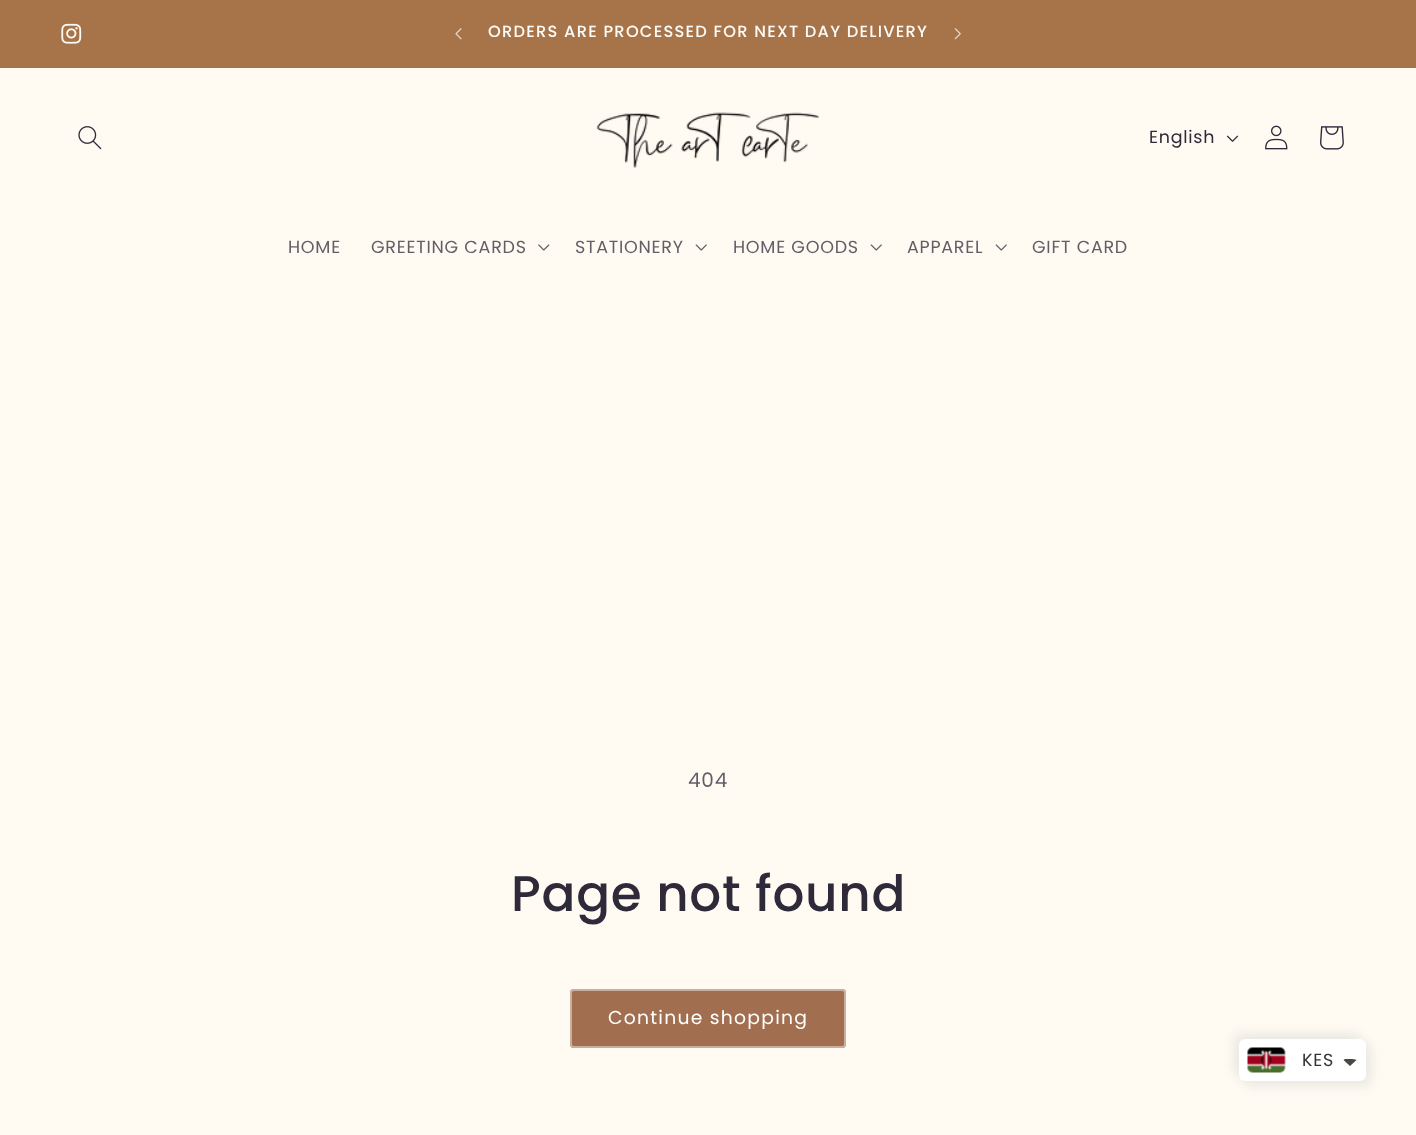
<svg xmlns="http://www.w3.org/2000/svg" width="1416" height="1135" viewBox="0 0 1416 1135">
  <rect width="100%" height="100%" fill="#fffaf2"/>
  <path d="M0 0h1416v68H0z" fill="#a7744a"/>
  <image x="61" y="23" width="21" height="21" href="img/1.png"/>
  <image x="455" y="28" width="7" height="12" href="img/2.png"/>
  <image x="954" y="28" width="7" height="12" href="img/3.png"/>
  <image x="78" y="126" width="24" height="24" href="img/4.png"/>
  <image x="596" y="112" width="223" height="56" href="img/5.png"/>
  <image x="1226" y="135" width="13" height="7" href="img/6.png"/>
  <image x="1265" y="125" width="23" height="25" href="img/7.png"/>
  <image x="1320" y="126" width="24" height="24" href="img/8.png"/>
  <image x="538" y="244" width="12" height="7" href="img/9.png"/>
  <image x="695" y="244" width="12" height="7" href="img/10.png"/>
  <image x="870" y="244" width="12" height="7" href="img/10.png"/>
  <image x="995" y="244" width="12" height="7" href="img/10.png"/>
  <rect x="570" y="989" width="276" height="59" rx="4" fill="#a16e4f"/>
  <rect x="570.5" y="989.5" width="275" height="58" rx="3.5" fill="none" stroke="#a16e4f"/>
  <rect x="571" y="990" width="274" height="57" rx="3" fill="none" stroke="#ffffff73" stroke-width="2"/>
  <rect x="1234" y="1034" width="127" height="42" rx="6" fill="#e8e8e2" filter="blur(5.5px)"/>
  <rect x="1244" y="1044" width="127" height="42" rx="6" fill="#e8e8e2" filter="blur(5.5px)"/>
  <rect x="1239" y="1039" width="127" height="42" rx="6" fill="#fff"/>
  <image x="1247" y="1047" width="39" height="26" href="img/11.png"/>
  <path d="M1346 1059C1348.5 1059 1354.5 1058.5 1356.5 1060L1350 1066L1343.5 1060C1344 1059.5 1345 1059 1346 1059Z" fill="#474942"/>
  <text x="488" y="37" font-family="Poppins" font-size="16.25" font-weight="500" letter-spacing="1.25" fill="#fdfbf7">ORDERS ARE PROCESSED FOR NEXT DAY DELIVERY</text>
  <text x="1149" y="143" font-family="Poppins" font-size="17.5" letter-spacing="0.75" fill="#2e2a39">English</text>
  <g font-family="Poppins" font-size="17.5" letter-spacing="0.75" fill="#625e67">
    <text x="288" y="253">HOME</text>
    <text x="371" y="253">GREETING CARDS</text>
    <text x="575" y="253">STATIONERY</text>
    <text x="733" y="253">HOME GOODS</text>
    <text x="907" y="253">APPAREL</text>
    <text x="1032" y="253">GIFT CARD</text>
  </g>
  <text x="688" y="787" font-family="Poppins" font-size="20" letter-spacing="0.75" fill="#625e67">404</text>
  <text x="511" y="911" font-family="Poppins" font-size="50" font-weight="500" letter-spacing="0.75" fill="#2e2a39">Page not found</text>
  <text x="608" y="1024" font-family="Poppins" font-size="18.75" letter-spacing="1.25" fill="#fff">Continue shopping</text>
  <text x="1302" y="1066" font-family="Poppins" font-size="17.5" letter-spacing="0.75" fill="#333">KES</text>
</svg>
